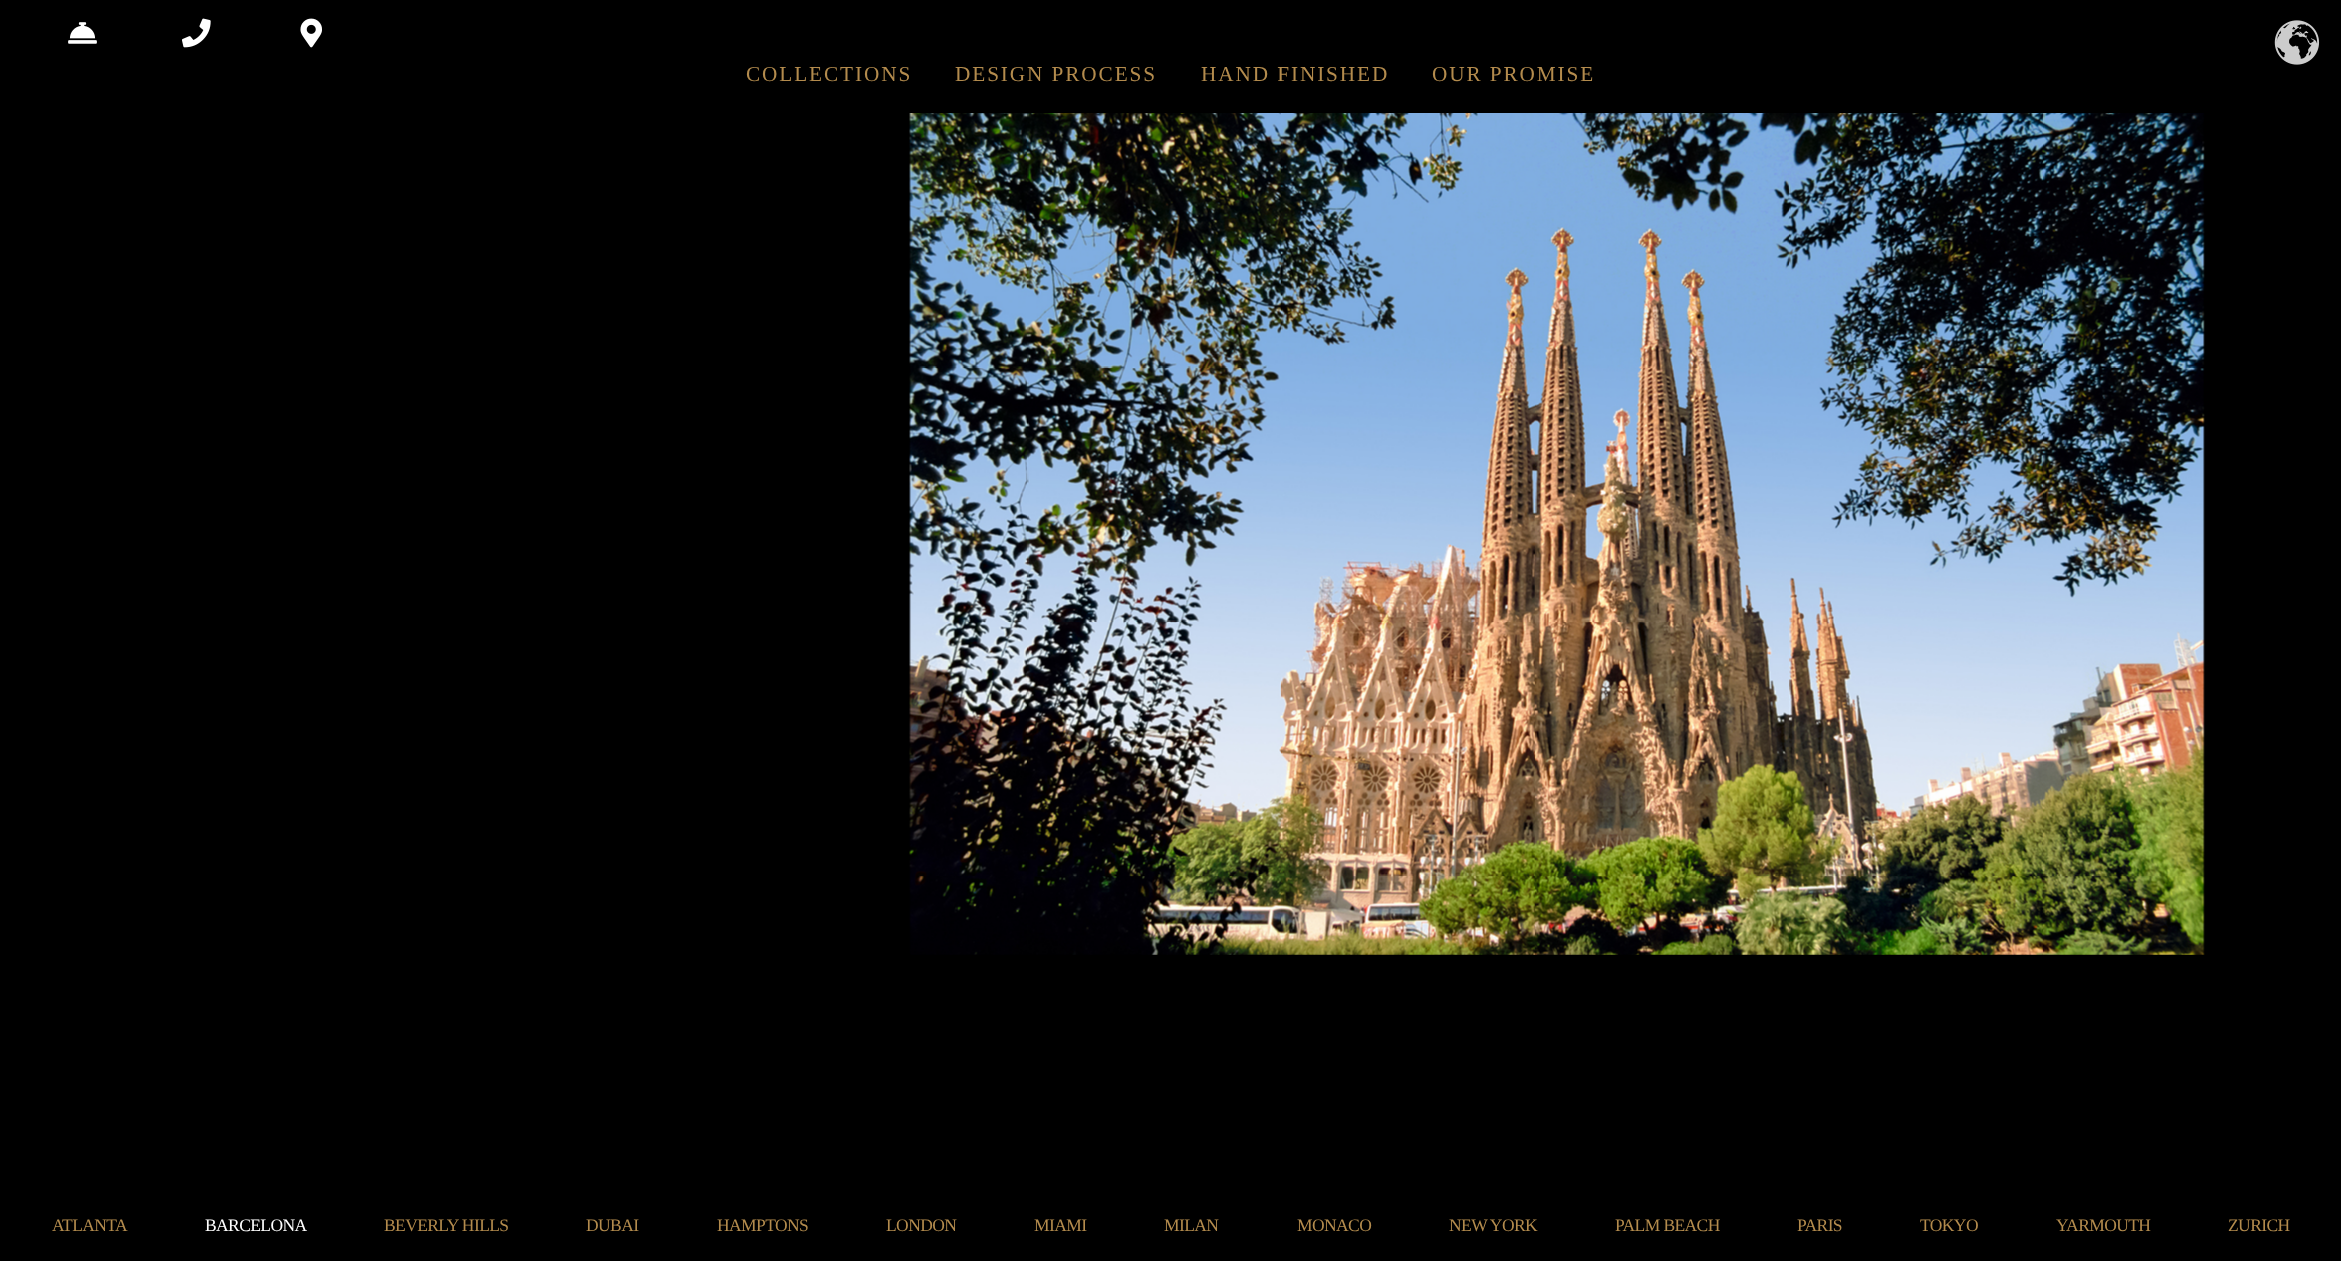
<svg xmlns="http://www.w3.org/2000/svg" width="2341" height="1261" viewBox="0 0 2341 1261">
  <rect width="100%" height="100%" fill="#000"/>
  <image x="2274" y="20" width="46" height="45" href="img/1.png"/>
  <image x="68" y="22" width="29" height="22" href="img/2.png"/>
  <image x="182" y="18" width="29" height="30" href="img/3.png"/>
  <image x="300" y="18" width="22" height="30" href="img/4.png"/>
  <image x="909" y="113" width="1296" height="842" href="img/5.png"/>
  <g font-family="Liberation Serif" font-size="21.25" letter-spacing="1.9" fill="#b38b4d">
    <text x="746" y="81">COLLECTIONS</text>
    <text x="955" y="81">DESIGN PROCESS</text>
    <text x="1201" y="81">HAND FINISHED</text>
    <text x="1432" y="81">OUR PROMISE</text>
  </g>
  <text x="52" y="1231" font-family="Liberation Serif" font-size="17.5" letter-spacing="-0.6" fill="#b38b4d">ATLANTA</text>
  <text x="205" y="1231" font-family="Liberation Serif" font-size="17.5" letter-spacing="-0.6" fill="#fff">BARCELONA</text>
  <g font-family="Liberation Serif" font-size="17.5" letter-spacing="-0.6" fill="#b38b4d">
    <text x="384" y="1231">BEVERLY HILLS</text>
    <text x="586" y="1231">DUBAI</text>
    <text x="717" y="1231">HAMPTONS</text>
    <text x="886" y="1231">LONDON</text>
    <text x="1034" y="1231">MIAMI</text>
    <text x="1164" y="1231">MILAN</text>
    <text x="1297" y="1231">MONACO</text>
    <text x="1449" y="1231">NEW YORK</text>
    <text x="1615" y="1231">PALM BEACH</text>
    <text x="1797" y="1231">PARIS</text>
    <text x="1920" y="1231">TOKYO</text>
    <text x="2056" y="1231">YARMOUTH</text>
    <text x="2228" y="1231">ZURICH</text>
  </g>
</svg>
